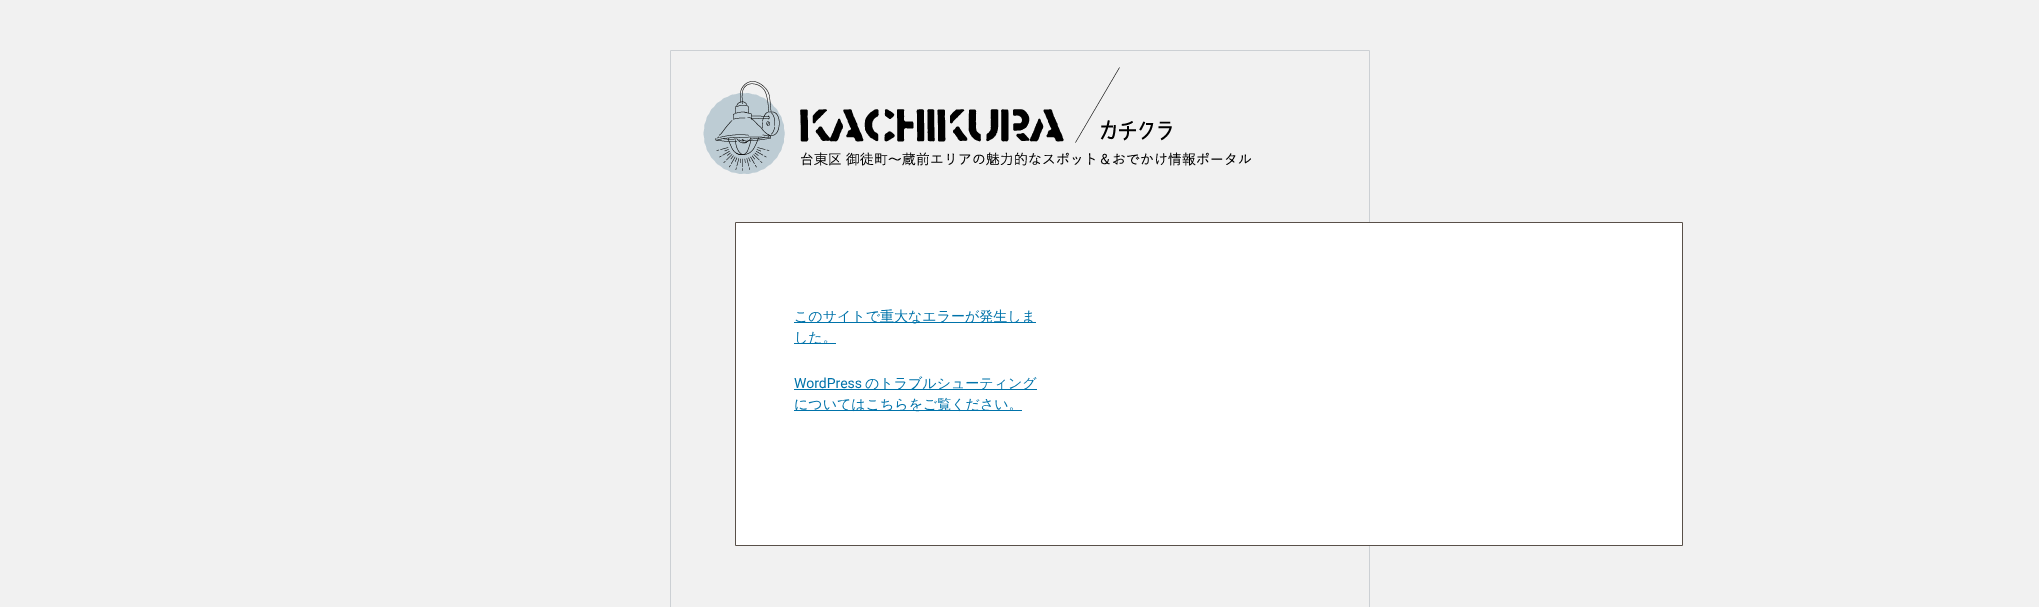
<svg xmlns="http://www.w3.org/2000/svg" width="2039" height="607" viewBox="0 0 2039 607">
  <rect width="100%" height="100%" fill="#f1f1f1"/>
  <path d="M670.5 50.5h699v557H670.5z" fill="none" stroke="#ccd0d4"/>
  <image x="703" y="67" width="548" height="107" href="img/1.png"/>
  <path d="M735.5 222.5h947v323H735.5z" fill="#fff" stroke="#595049"/>
  <path d="M794 322h242v1H794z" fill="#0073aa"/>
  <path d="M794 343h42v1H794z" fill="#0073aa"/>
  <path d="M794 389h243v1H794z" fill="#0073aa"/>
  <path d="M794 410h228v1H794z" fill="#0073aa"/>
  <g font-family="WenQuanYi Zen Hei" font-size="14" font-weight="500" fill="#0073aa">
    <text x="794" y="321">このサイトで重大なエラーが発生しま</text>
    <text x="794" y="342">した。</text>
  </g>
  <text x="794" y="388" font-family="Roboto" font-size="14" fill="#0073aa">WordPress</text>
  <g font-family="WenQuanYi Zen Hei" font-size="14" font-weight="500" fill="#0073aa">
    <text x="865" y="388">のトラブルシューティング</text>
    <text x="794" y="409">についてはこちらをご覧ください。</text>
  </g>
</svg>
